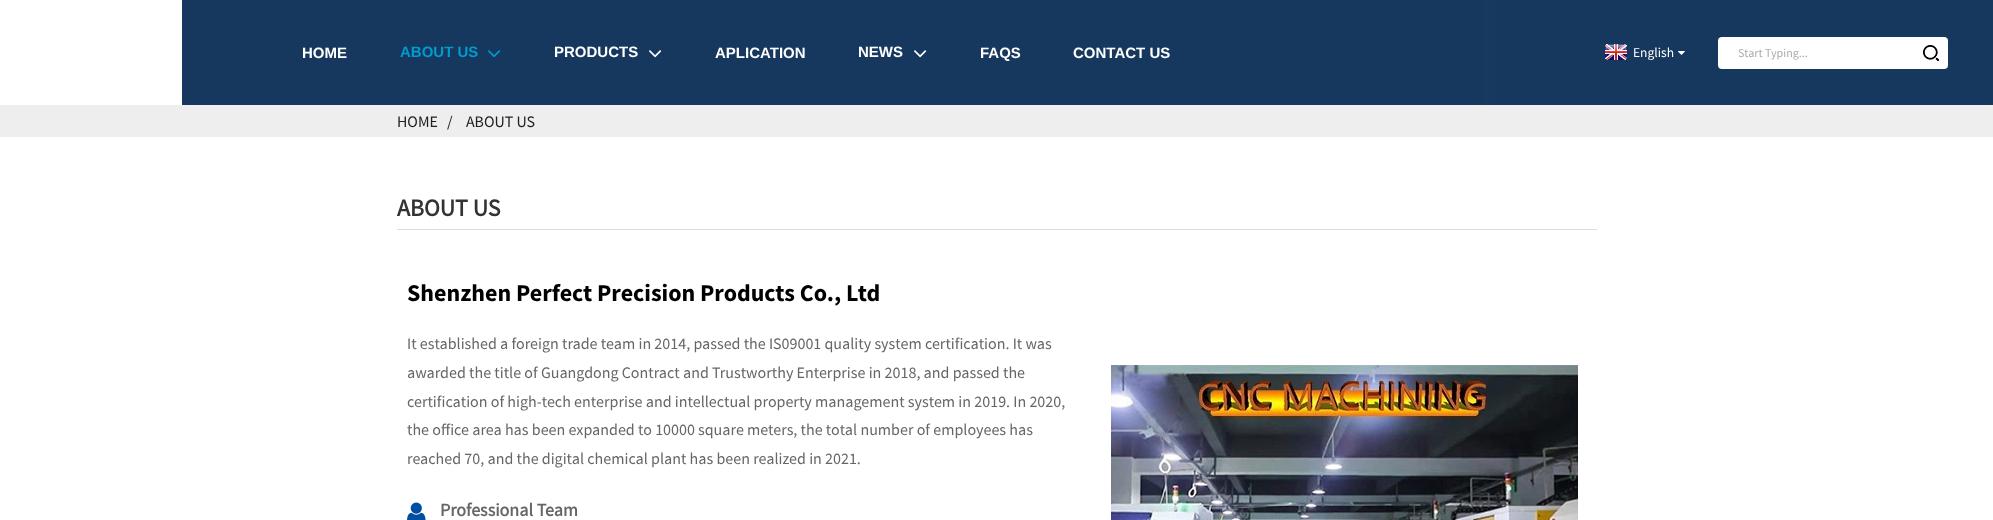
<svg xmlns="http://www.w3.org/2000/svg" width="1993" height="520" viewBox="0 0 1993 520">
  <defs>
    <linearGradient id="g1" gradientUnits="userSpaceOnUse" x1="0" y1="53" x2="1993" y2="52"><stop offset="0.25" stop-color="#fff"/><stop offset="0.75" stop-color="#16385e"/></linearGradient>
  </defs>
  <rect width="100%" height="100%" fill="#fff"/>
  <path d="M509 0h1484v105H509z" fill="url(#g1)"/>
  <path d="M182 0h1302v105H182z" fill="#16385e"/>
  <image x="488" y="50" width="13" height="8" href="img/1.png"/>
  <image x="649" y="50" width="13" height="8" href="img/2.png"/>
  <image x="914" y="50" width="13" height="8" href="img/2.png"/>
  <image x="1605" y="44" width="22" height="16" href="img/3.png"/>
  <image x="1678" y="51" width="7" height="4" href="img/4.png"/>
  <rect x="1718" y="37" width="230" height="32" rx="4" fill="#fff"/>
  <image x="1923" y="45" width="16" height="16" href="img/5.png"/>
  <path d="M0 105h1993v32H0z" fill="#eee"/>
  <path d="M397 229h1200v1H397z" fill="#ddd"/>
  <image x="407" y="502" width="19" height="18" href="img/6.png"/>
  <image x="1111" y="365" width="467" height="155" href="img/7.png"/>
  <text x="302" y="58" font-family="Liberation Sans" font-size="15" font-weight="bold" fill="#fff">HOME</text>
  <text x="400" y="57" font-family="Liberation Sans" font-size="15" font-weight="bold" fill="#019bcf">ABOUT US</text>
  <g font-family="Liberation Sans" font-size="15" font-weight="bold" fill="#fff">
    <text x="554" y="57">PRODUCTS</text>
    <text x="715" y="58">APLICATION</text>
    <text x="858" y="57">NEWS</text>
    <text x="980" y="58">FAQS</text>
    <text x="1073" y="58">CONTACT US</text>
  </g>
  <text x="1633" y="57" font-family="Source Sans Pro" font-size="13.5" fill="#fff">English</text>
  <text x="1738" y="57" font-family="Source Sans Pro" font-size="12" fill="#aaa">Start Typing...</text>
  <g font-family="Source Sans Pro" font-size="16" fill="#202020">
    <text x="397" y="127">HOME</text>
    <text x="447" y="127">/</text>
    <text x="466" y="127">ABOUT US</text>
  </g>
  <text x="397" y="216" font-family="Source Sans Pro" font-size="24" font-weight="bold" fill="#333">ABOUT US</text>
  <text x="407" y="301" font-family="'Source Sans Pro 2'" font-size="24" font-weight="bold" fill="#000">Shenzhen Perfect Precision Products Co., Ltd</text>
  <g font-family="Source Sans Pro" font-size="16" fill="#666">
    <text x="407" y="349">It established a foreign trade team in 2014, passed the IS09001 quality system certification. It was</text>
    <text x="407" y="378">awarded the title of Guangdong Contract and Trustworthy Enterprise in 2018, and passed the</text>
    <text x="407" y="407">certification of high-tech enterprise and intellectual property management system in 2019. In 2020,</text>
    <text x="407" y="435">the office area has been expanded to 10000 square meters, the total number of employees has</text>
    <text x="407" y="464">reached 70, and the digital chemical plant has been realized in 2021.</text>
  </g>
  <text x="440" y="516" font-family="Source Sans Pro" font-size="18" font-weight="bold" fill="#666">Professional Team</text>
</svg>
